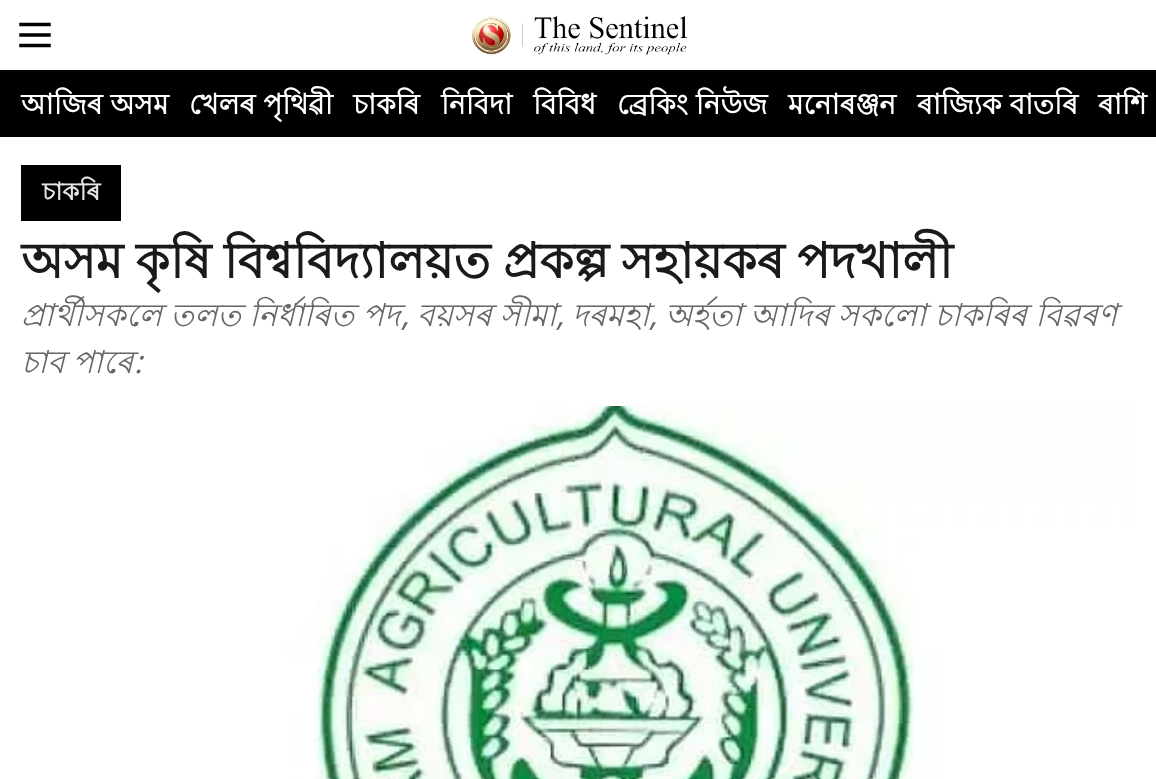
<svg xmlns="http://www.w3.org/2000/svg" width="1156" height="779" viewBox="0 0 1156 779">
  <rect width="100%" height="100%" fill="#fff"/>
  <image x="19" y="22" width="32" height="26" href="img/1.png"/>
  <image x="472" y="16" width="215" height="39" href="img/2.png"/>
  <path d="M0 70h1156v67H0z" fill="#000"/>
  <path d="M21 165h100v56H21z" fill="#000"/>
  <image x="21" y="406" width="1115" height="373" href="img/3.png"/>
  <g font-family="Lohit Bengali" font-size="28" font-weight="bold" fill="#fff">
    <text x="21" y="114">আজিৰ অসম</text>
    <text x="189" y="114">খেলৰ পৃথিৱী</text>
    <text x="353" y="114">চাকৰি</text>
    <text x="441" y="114">নিবিদা</text>
    <text x="533" y="114">বিবিধ</text>
    <text x="617" y="114">ব্ৰেকিং নিউজ</text>
    <text x="788" y="114">মনোৰঞ্জন</text>
    <text x="917" y="114">ৰাজ্যিক বাতৰি</text>
    <text x="1098" y="114">ৰাশি</text>
  </g>
  <text x="42" y="200" font-family="Lohit Bengali" font-size="24.5" font-weight="bold" fill="#e6e6e6">চাকৰি</text>
  <text x="21" y="278" word-spacing="-1" font-family="Lohit Bengali" font-size="49" font-weight="bold" fill="#1a1a1a">অসম কৃষি বিশ্ববিদ্যালয়ত প্ৰকল্প সহায়কৰ পদখালী</text>
  <g font-family="Lohit Bengali" font-size="31.5" font-style="italic" fill="#666">
    <text x="21" y="326" word-spacing="-0.5">প্ৰাৰ্থীসকলে তলত নিৰ্ধাৰিত পদ</text>
    <text x="417" y="326" word-spacing="-0.5">বয়সৰ সীমা</text>
    <text x="572" y="326">দৰমহা</text>
    <text x="665" y="326" word-spacing="-0.5">অৰ্হতা আদিৰ সকলো চাকৰিৰ বিৱৰণ</text>
  </g>
  <g font-family="Open Sans" font-size="31.5" font-style="italic" fill="#666">
    <text x="401" y="326">,</text>
    <text x="556" y="326">,</text>
    <text x="649" y="326">,</text>
  </g>
  <text x="21" y="373" word-spacing="-1" font-family="Lohit Bengali" font-size="31.5" font-style="italic" fill="#666">চাব পাৰে</text>
  <text x="134" y="373" font-family="Open Sans" font-size="31.5" font-style="italic" fill="#666">:</text>
</svg>
